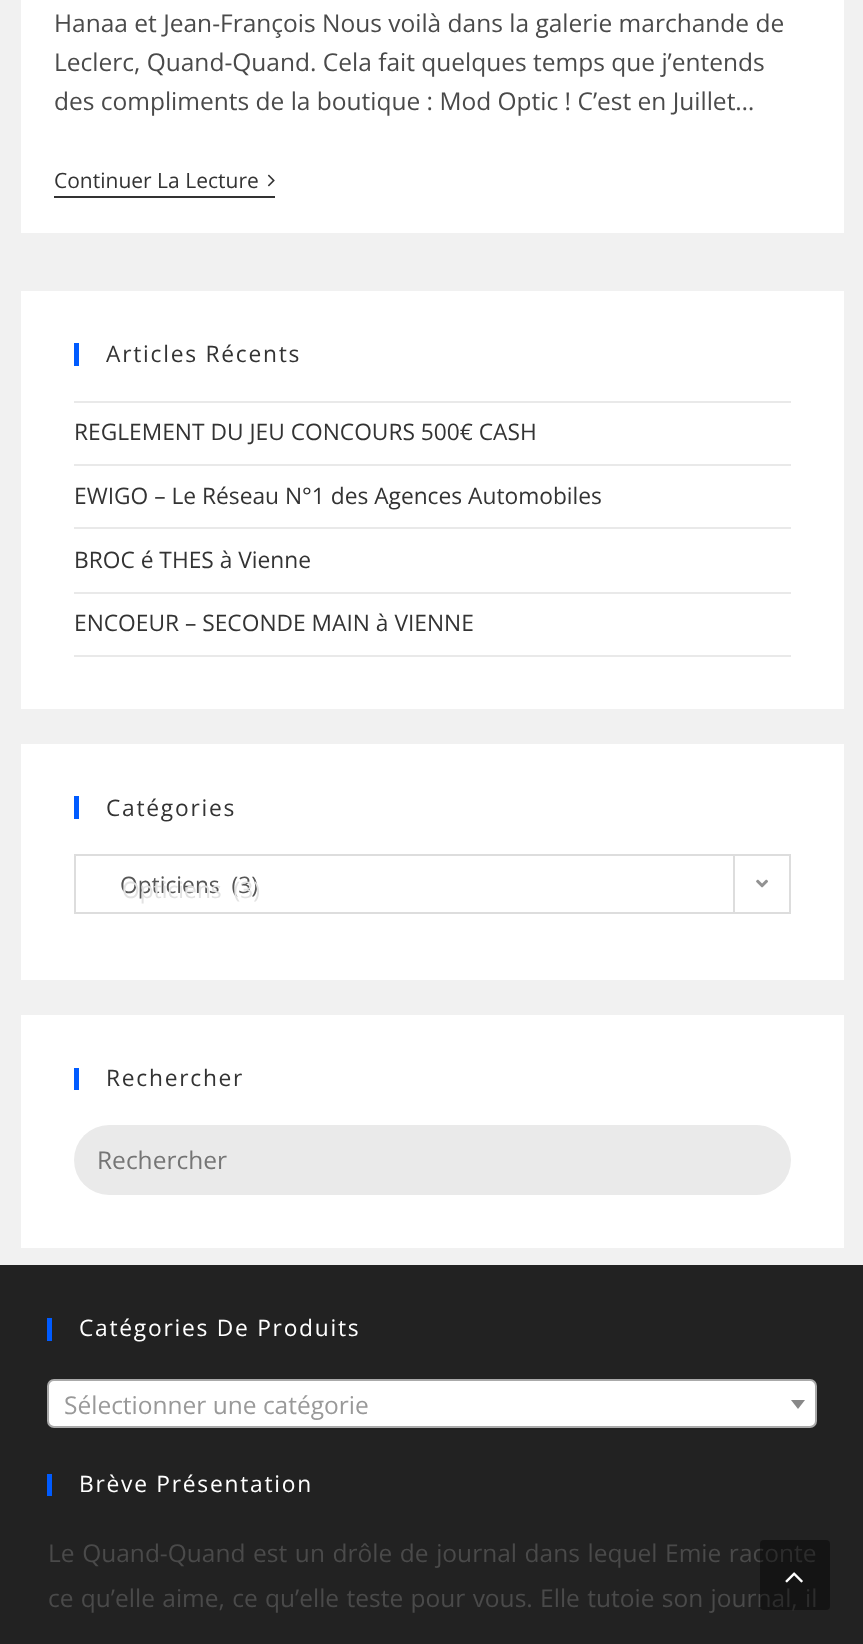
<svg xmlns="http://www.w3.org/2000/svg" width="863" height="1644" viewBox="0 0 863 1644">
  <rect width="100%" height="100%" fill="#f1f1f1"/>
  <path d="M21 0h823v233H21z" fill="#fff"/>
  <path d="M54 196h221v2H54z" fill="#333"/>
  <image x="267" y="174" width="8" height="13" href="img/1.png"/>
  <path d="M21 291h823v418H21z" fill="#fff"/>
  <path d="M74 343h5v23H74z" fill="#005bff"/>
  <path d="M74 401h717v2H74z" fill="#e9e9e9"/>
  <path d="M74 464h717v2H74z" fill="#e9e9e9"/>
  <path d="M74 527h717v2H74z" fill="#e9e9e9"/>
  <path d="M74 592h717v2H74z" fill="#e9e9e9"/>
  <path d="M74 655h717v2H74z" fill="#e9e9e9"/>
  <path d="M21 744h823v236H21z" fill="#fff"/>
  <path d="M74 796h5v23H74z" fill="#005bff"/>
  <path d="M75 855h715v58H75z" fill="none" stroke="#ddd" stroke-width="2"/>
  <path d="M733 856h2v56H733z" fill="#ddd"/>
  <image x="756" y="879" width="12" height="9" href="img/2.png"/>
  <path d="M21 1015h823v233H21z" fill="#fff"/>
  <path d="M74 1068h5v22H74z" fill="#005bff"/>
  <rect x="74" y="1125" width="717" height="70" rx="35" fill="#eaeaea"/>
  <path d="M0 1265h863v379H0z" fill="#222"/>
  <path d="M47 1318h5v23H47z" fill="#005bff"/>
  <rect x="48" y="1380" width="768" height="47" rx="6" fill="#fff" stroke="#aaa" stroke-width="2"/>
  <path d="M791 1400H805L798 1409Z" fill="#888"/>
  <path d="M47 1474h5v22H47z" fill="#005bff"/>
  <g font-family="Open Sans" font-size="24.5" fill="#4a4a4a">
    <text x="54" y="32">Hanaa et Jean-François Nous voilà dans la galerie marchande de</text>
    <text x="54" y="71">Leclerc, Quand-Quand. Cela fait quelques temps que j’entends</text>
    <text x="54" y="110">des compliments de la boutique : Mod Optic ! C’est en Juillet…</text>
  </g>
  <text x="54" y="188" font-family="Open Sans" font-size="21" fill="#333">Continuer La Lecture</text>
  <text x="106" y="362" font-family="Open Sans" font-size="22.75" letter-spacing="1.75" fill="#333">Articles Récents</text>
  <g font-family="Open Sans" font-size="22.75" fill="#333">
    <text x="74" y="440">REGLEMENT DU JEU CONCOURS 500€ CASH</text>
    <text x="74" y="504">EWIGO – Le Réseau N°1 des Agences Automobiles</text>
    <text x="74" y="568">BROC é THES à Vienne</text>
    <text x="74" y="631">ENCOEUR – SECONDE MAIN à VIENNE</text>
  </g>
  <text x="106" y="816" font-family="Open Sans" font-size="22.75" letter-spacing="1.75" fill="#333">Catégories</text>
  <text x="120" y="893" font-family="Open Sans" font-size="22.75" fill="#555" xml:space="preserve">Opticiens  (3)</text>
  <text x="122" y="898" font-family="Open Sans" font-size="22.75" fill="#e2e2e2" xml:space="preserve">Opticiens  (3)</text>
  <text x="106" y="1086" font-family="Open Sans" font-size="22.75" letter-spacing="1.75" fill="#333">Rechercher</text>
  <text x="97" y="1169" font-family="Open Sans" font-size="24.5" fill="#757575">Rechercher</text>
  <text x="79" y="1336" font-family="Open Sans" font-size="22.75" letter-spacing="1.75" fill="#fff">Catégories De Produits</text>
  <text x="64" y="1414" font-family="Open Sans" font-size="24.5" fill="#999">Sélectionner une catégorie</text>
  <text x="79" y="1492" font-family="Open Sans" font-size="22.75" letter-spacing="1.75" fill="#fff">Brève Présentation</text>
  <g font-family="Open Sans" font-size="24.5" fill="#4a4a4a">
    <text x="48" y="1562" word-spacing="1.25">Le Quand-Quand est un drôle de journal dans lequel Emie raconte</text>
    <text x="48" y="1607" word-spacing="1">ce qu’elle aime, ce qu’elle teste pour vous. Elle tutoie son journal, il</text>
  </g>
  <rect x="760" y="1540" width="70" height="70" rx="4" fill="#00000066"/>
  <image x="785" y="1572" width="18" height="11" href="img/3.png"/>
</svg>
